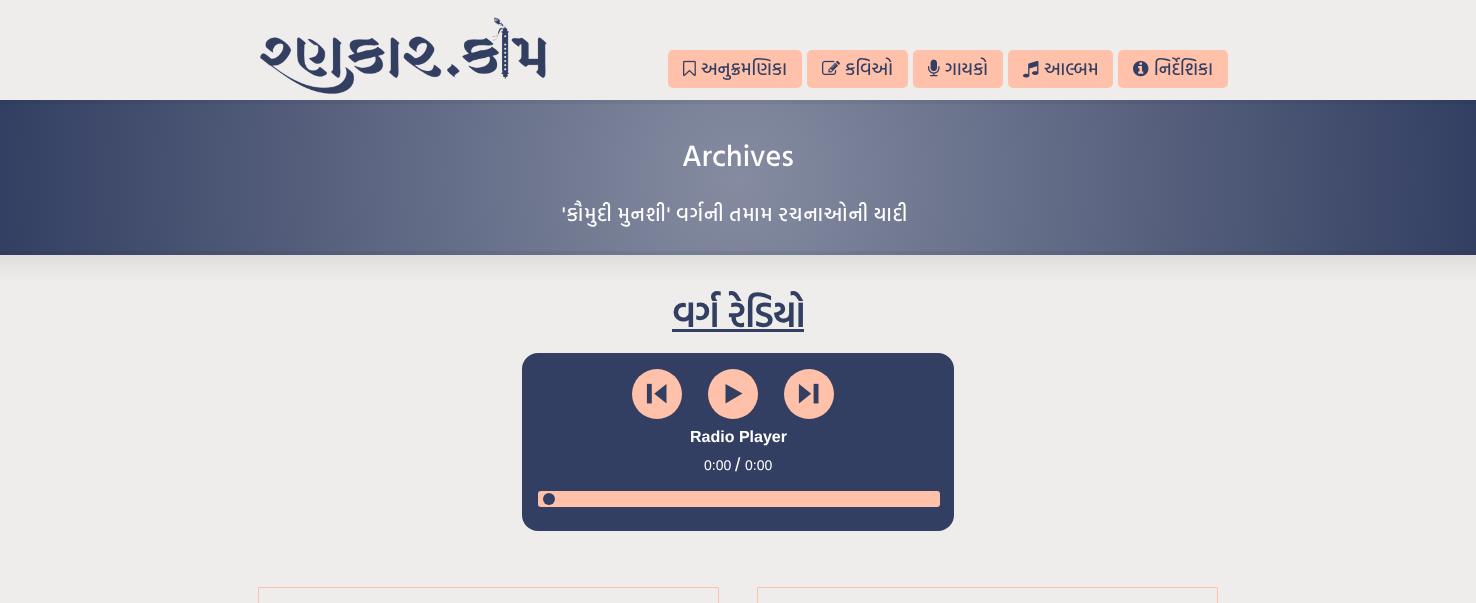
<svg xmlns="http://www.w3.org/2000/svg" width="1476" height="603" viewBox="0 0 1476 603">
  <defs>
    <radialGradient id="g1" gradientUnits="userSpaceOnUse" cx="738" cy="178" r="742"><stop offset="0" stop-color="#858ca1"/><stop offset="1" stop-color="#333f62"/></radialGradient>
    <radialGradient id="g2" gradientUnits="userSpaceOnUse" cx="738" cy="178" r="742"><stop offset="0" stop-color="#7e8599"/><stop offset="1" stop-color="#303c5d"/></radialGradient>
    <linearGradient id="g3" gradientUnits="userSpaceOnUse" x1="738" y1="255" x2="738" y2="282"><stop offset="0" stop-color="#e1dfde"/><stop offset="1" stop-color="#efedec"/></linearGradient>
  </defs>
  <rect width="100%" height="100%" fill="#fff"/>
  <path d="M0 0h1476v100H0z" fill="#efedec"/>
  <image x="260" y="17" width="287" height="77" href="img/1.png"/>
  <rect x="668" y="50" width="134" height="38" rx="5" fill="#ffc1aa"/>
  <image x="683" y="60" width="13" height="16" href="img/2.png"/>
  <rect x="807" y="50" width="101" height="38" rx="5" fill="#ffc1aa"/>
  <image x="822" y="60" width="18" height="15" href="img/3.png"/>
  <rect x="913" y="50" width="90" height="38" rx="5" fill="#ffc1aa"/>
  <image x="928" y="59" width="12" height="18" href="img/4.png"/>
  <rect x="1008" y="50" width="105" height="38" rx="5" fill="#ffc1aa"/>
  <image x="1023" y="60" width="16" height="18" href="img/5.png"/>
  <rect x="1118" y="50" width="110" height="38" rx="5" fill="#ffc1aa"/>
  <image x="1133" y="60" width="16" height="17" href="img/6.png"/>
  <path d="M0 104h1476v147H0z" fill="url(#g1)"/>
  <path d="M0 100h1476v4H0z" fill="url(#g2)"/>
  <path d="M0 251h1476v4H0z" fill="url(#g2)"/>
  <path d="M0 282h1476v321H0z" fill="#efedec"/>
  <path d="M0 255h1476v27H0z" fill="url(#g3)"/>
  <path d="M672 329h132v3H672z" fill="#333f62"/>
  <rect x="522" y="353" width="432" height="178" rx="16" fill="#333f62"/>
  <circle cx="657" cy="394" r="25" fill="#ffc1aa"/>
  <image x="646" y="383" width="21" height="21" href="img/7.png"/>
  <circle cx="733" cy="394" r="25" fill="#ffc1aa"/>
  <path d="M725.5 384V403.5L742.5 393.5Z" fill="#333f62"/>
  <circle cx="809" cy="394" r="25" fill="#ffc1aa"/>
  <image x="798" y="383" width="21" height="21" href="img/8.png"/>
  <rect x="538" y="491" width="402" height="16" rx="3" fill="#ffc1aa"/>
  <circle cx="549" cy="499" r="6" fill="#333f62"/>
  <rect x="258.5" y="587.5" width="460" height="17" rx="0.5" fill="none" stroke="#ffc1aa"/>
  <rect x="757.5" y="587.5" width="460" height="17" rx="0.5" fill="none" stroke="#ffc1aa"/>
  <g font-family="Hind Vadodara" font-size="18" font-weight="500" fill="#333f62">
    <text x="701" y="75">અનુક્રમણિકા</text>
    <text x="845" y="75">કવિઓ</text>
    <text x="945" y="75">ગાયકો</text>
    <text x="1044" y="75">આલ્બમ</text>
    <text x="1154" y="75">નિર્દેશિકા</text>
  </g>
  <text x="682" y="166" font-family="Hind Vadodara" font-size="30" font-weight="500" fill="#fff">Archives</text>
  <text x="562" y="221" word-spacing="-1" font-family="Hind Vadodara" font-size="20" font-weight="500" letter-spacing="1" fill="#fff">'કૌમુદી મુનશી' વર્ગની તમામ રચનાઓની યાદી</text>
  <text x="672" y="327" font-family="Hind Vadodara" font-size="36" font-weight="bold" fill="#333f62">વર્ગ રેડિયો</text>
  <text x="690" y="442" font-family="Liberation Sans" font-size="16" font-weight="bold" fill="#fff">Radio Player</text>
  <text x="704" y="470" font-family="Liberation Sans" font-size="14" fill="#fff">0:00</text>
  <text x="735" y="471" font-family="Liberation Sans" font-size="19" fill="#fff">/</text>
  <text x="745" y="470" font-family="Liberation Sans" font-size="14" fill="#fff">0:00</text>
</svg>
